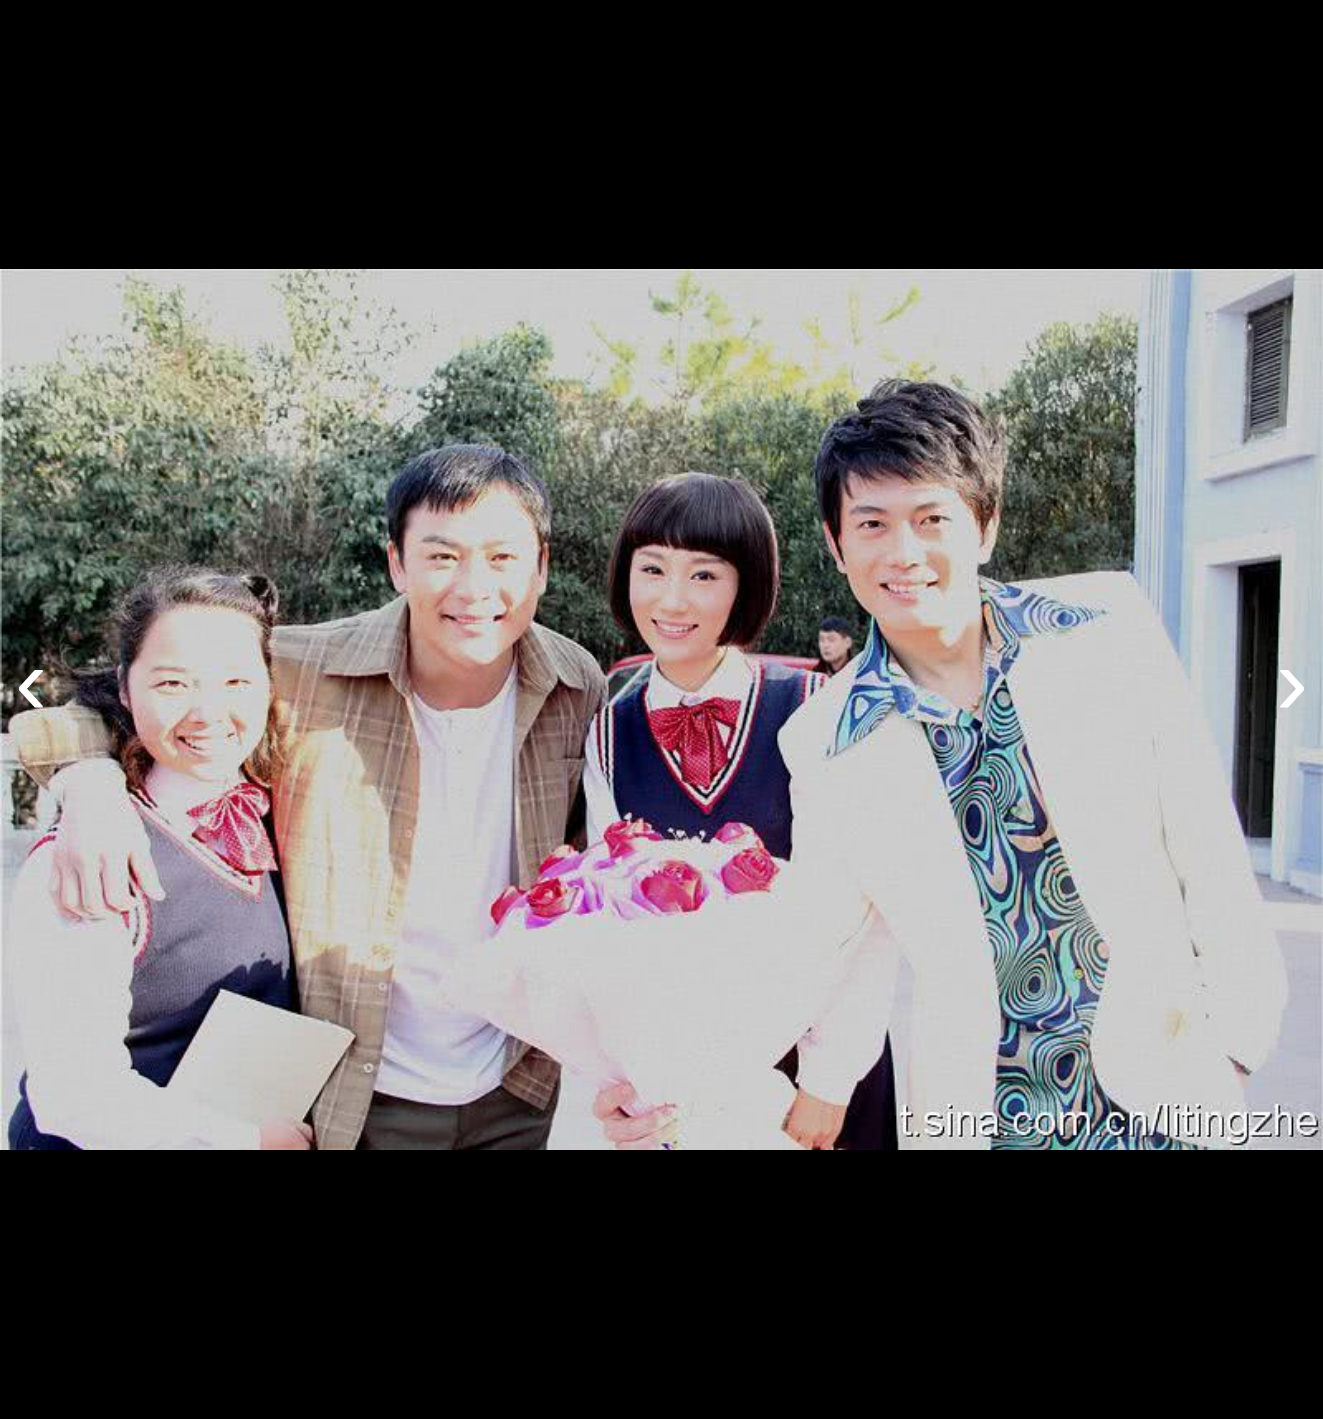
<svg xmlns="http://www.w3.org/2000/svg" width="1323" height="1419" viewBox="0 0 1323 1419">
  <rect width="100%" height="100%" fill="#000"/>
  <image x="0" y="269" width="1323" height="881" href="img/1.png"/>
  <g font-family="Liberation Sans" font-size="96" fill="#fff">
    <text x="15" y="714">‹</text>
    <text x="1276" y="714">›</text>
  </g>
</svg>
